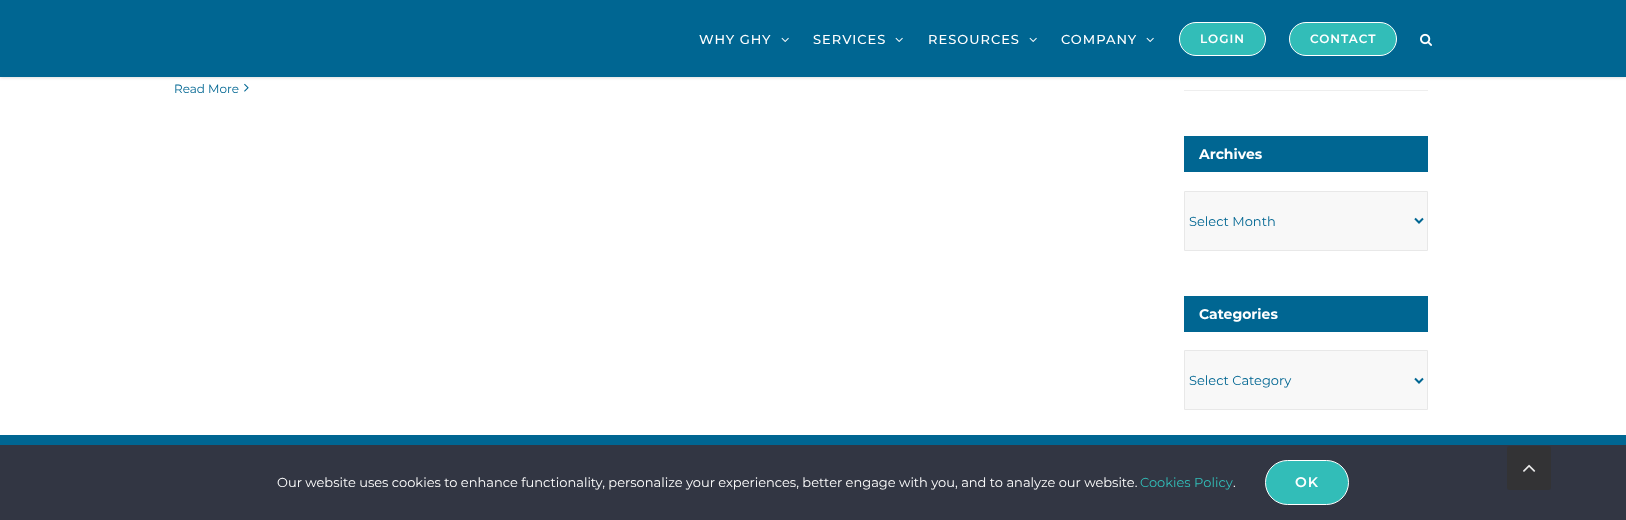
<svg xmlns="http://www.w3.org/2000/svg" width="1626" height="520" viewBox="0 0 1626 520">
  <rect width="100%" height="100%" fill="#fff"/>
  <image x="244" y="83" width="5" height="9" href="img/3.png"/>
  <path d="M0 1h1626v77H0z" fill="#0000001f" filter="blur(1.5px)"/>
  <path d="M0 0h1626v77H0z" fill="#006692"/>
  <image x="781" y="37" width="8" height="5" href="img/1.png"/>
  <image x="895" y="37" width="8" height="5" href="img/1.png"/>
  <image x="1029" y="37" width="8" height="5" href="img/1.png"/>
  <image x="1146" y="37" width="8" height="5" href="img/1.png"/>
  <rect x="1179.5" y="22.5" width="86" height="33" rx="16.5" fill="#32bdb8" stroke="#fff"/>
  <rect x="1289.5" y="22.5" width="107" height="33" rx="16.5" fill="#32bdb8" stroke="#fff"/>
  <image x="1420" y="33" width="12" height="13" href="img/2.png"/>
  <path d="M1184 90h244v1H1184z" fill="#eee"/>
  <path d="M1184 136h244v36H1184z" fill="#006692"/>
  <path d="M1184.5 191.5h243v59H1184.5z" fill="#f8f8f8" stroke="#e8e8e8"/>
  <path d="M1415 218.5L1419 222.5L1423 218.5" fill="none" stroke="#006692" stroke-width="2"/>
  <path d="M1184 296h244v36H1184z" fill="#006692"/>
  <path d="M1184.5 350.5h243v59H1184.5z" fill="#f8f8f8" stroke="#e8e8e8"/>
  <path d="M1415 378.5L1419 382.5L1423 378.5" fill="none" stroke="#006692" stroke-width="2"/>
  <path d="M0 435h1626v10H0z" fill="#006692"/>
  <path d="M0 445h1626v75H0z" fill="#323643"/>
  <rect x="1265.5" y="460.5" width="83" height="44" rx="22" fill="#32bdb8" stroke="#fff"/>
  <rect x="1507" y="446" width="44" height="44" rx="3" fill="#333335"/>
  <image x="1523" y="464" width="13" height="8" href="img/4.png"/>
  <g font-family="Montserrat" font-size="13" font-weight="500" letter-spacing="1" fill="#fff">
    <text x="699" y="44">WHY GHY</text>
    <text x="813" y="44">SERVICES</text>
    <text x="928" y="44">RESOURCES</text>
    <text x="1061" y="44">COMPANY</text>
  </g>
  <g font-family="Montserrat" font-size="12" font-weight="600" letter-spacing="1" fill="#fff">
    <text x="1200" y="43">LOGIN</text>
    <text x="1310" y="43">CONTACT</text>
  </g>
  <text x="174" y="93" font-family="Montserrat" font-size="12" fill="#006692">Read More</text>
  <text x="1199" y="159" font-family="Montserrat" font-size="14" font-weight="bold" fill="#fff">Archives</text>
  <text x="1189" y="226" font-family="Montserrat" font-size="13" fill="#006692">Select Month</text>
  <text x="1199" y="319" font-family="Montserrat" font-size="14" font-weight="bold" fill="#fff">Categories</text>
  <text x="1189" y="385" font-family="Montserrat" font-size="13" fill="#006692">Select Category</text>
  <text x="277" y="487" font-family="Montserrat" font-size="13" fill="#fff">Our website uses cookies to enhance functionality, personalize your experiences, better engage with you, and to analyze our website.</text>
  <text x="1140" y="487" font-family="Montserrat" font-size="13" fill="#32bdb8">Cookies Policy</text>
  <text x="1233" y="487" font-family="Montserrat" font-size="13" fill="#fff">.</text>
  <text x="1295" y="487" font-family="Montserrat" font-size="14" font-weight="600" letter-spacing="1" fill="#fff">OK</text>
</svg>
